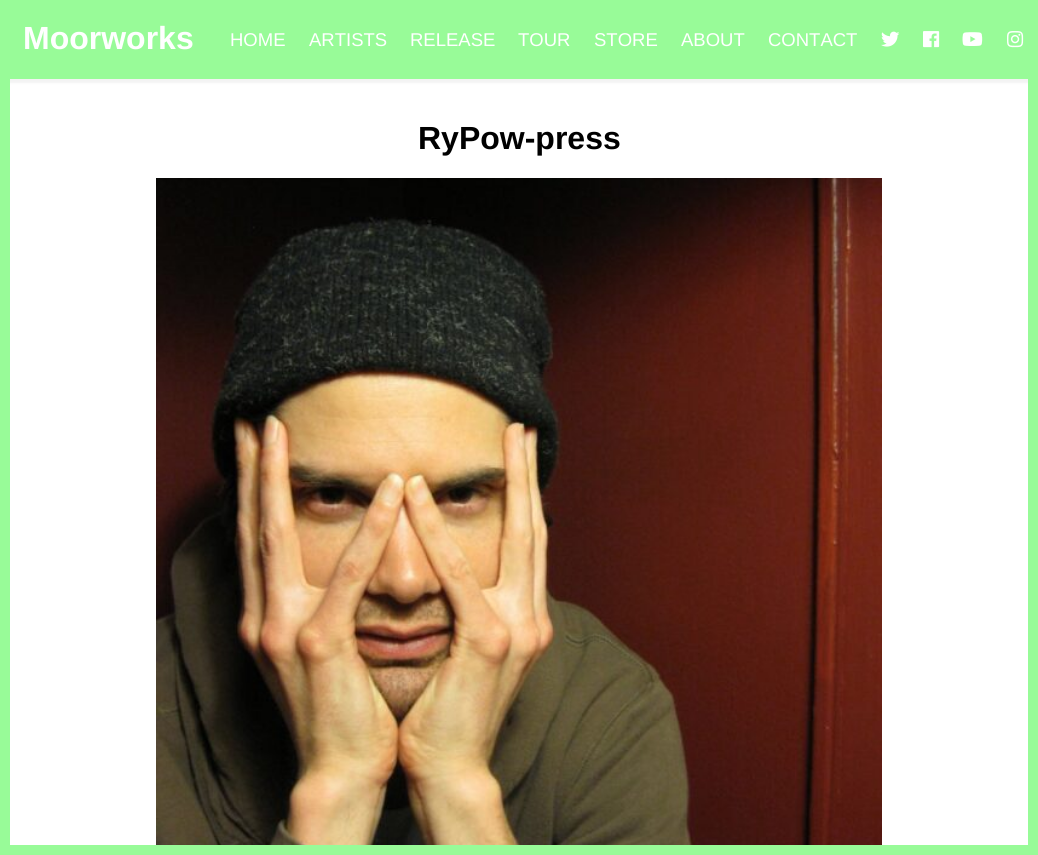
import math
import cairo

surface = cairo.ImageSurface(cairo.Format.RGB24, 1038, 855)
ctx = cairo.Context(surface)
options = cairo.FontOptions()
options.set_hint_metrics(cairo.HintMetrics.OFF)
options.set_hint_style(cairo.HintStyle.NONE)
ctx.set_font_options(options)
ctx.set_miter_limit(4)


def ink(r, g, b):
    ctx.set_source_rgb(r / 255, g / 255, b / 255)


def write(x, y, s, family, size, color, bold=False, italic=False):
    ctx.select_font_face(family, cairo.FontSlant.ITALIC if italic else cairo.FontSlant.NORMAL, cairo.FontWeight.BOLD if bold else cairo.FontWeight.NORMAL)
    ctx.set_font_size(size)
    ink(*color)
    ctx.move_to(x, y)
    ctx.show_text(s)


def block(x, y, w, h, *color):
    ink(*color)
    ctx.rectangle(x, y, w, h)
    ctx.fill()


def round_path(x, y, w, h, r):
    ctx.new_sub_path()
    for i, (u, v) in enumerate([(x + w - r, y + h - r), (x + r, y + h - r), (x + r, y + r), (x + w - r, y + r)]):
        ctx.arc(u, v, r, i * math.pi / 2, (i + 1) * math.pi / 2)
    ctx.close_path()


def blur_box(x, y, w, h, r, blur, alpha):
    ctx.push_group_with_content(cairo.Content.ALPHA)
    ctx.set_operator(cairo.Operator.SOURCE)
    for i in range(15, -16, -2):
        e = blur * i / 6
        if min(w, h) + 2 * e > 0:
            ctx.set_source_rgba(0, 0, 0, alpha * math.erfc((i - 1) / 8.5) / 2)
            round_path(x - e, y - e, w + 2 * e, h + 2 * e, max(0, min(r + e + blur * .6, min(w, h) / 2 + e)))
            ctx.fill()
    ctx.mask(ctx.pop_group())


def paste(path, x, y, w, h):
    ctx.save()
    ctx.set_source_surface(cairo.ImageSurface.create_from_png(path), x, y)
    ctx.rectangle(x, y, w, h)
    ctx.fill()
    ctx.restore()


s1 = dict(family="Liberation Sans", size=32, color=(255, 255, 255), bold=True)
s2 = dict(family="Liberation Sans", size=18.5, color=(255, 255, 255))
s3 = dict(family="Liberation Sans", size=32, color=(0, 0, 0), bold=True)

ink(255, 255, 255)
ctx.paint()
ink(0, 0, 0)
blur_box(0, 4, 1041, 79, 0, 1, 0.05)
block(10, 10, 1018, 69, 152, 251, 152)
paste("pic1.png", 881, 31, 19, 16)
paste("pic2.png", 923, 31, 17, 17)
paste("pic3.png", 962, 32, 21, 14)
paste("pic4.png", 1007, 31, 17, 17)
paste("pic5.png", 156, 178, 726, 667)
ctx.rectangle(5, 5, 1028, 845)
ctx.set_line_width(10)
ctx.stroke()
write(23, 49, "Moorworks", **s1)
write(230, 46, "HOME", **s2)
write(309, 46, "ARTISTS", **s2)
write(410, 46, "RELEASE", **s2)
write(518, 46, "TOUR", **s2)
write(594, 46, "STORE", **s2)
write(681, 46, "ABOUT", **s2)
write(768, 46, "CONTACT", **s2)
write(418, 149, "RyPow-press", **s3)
surface.write_to_png("screenshot.png")
